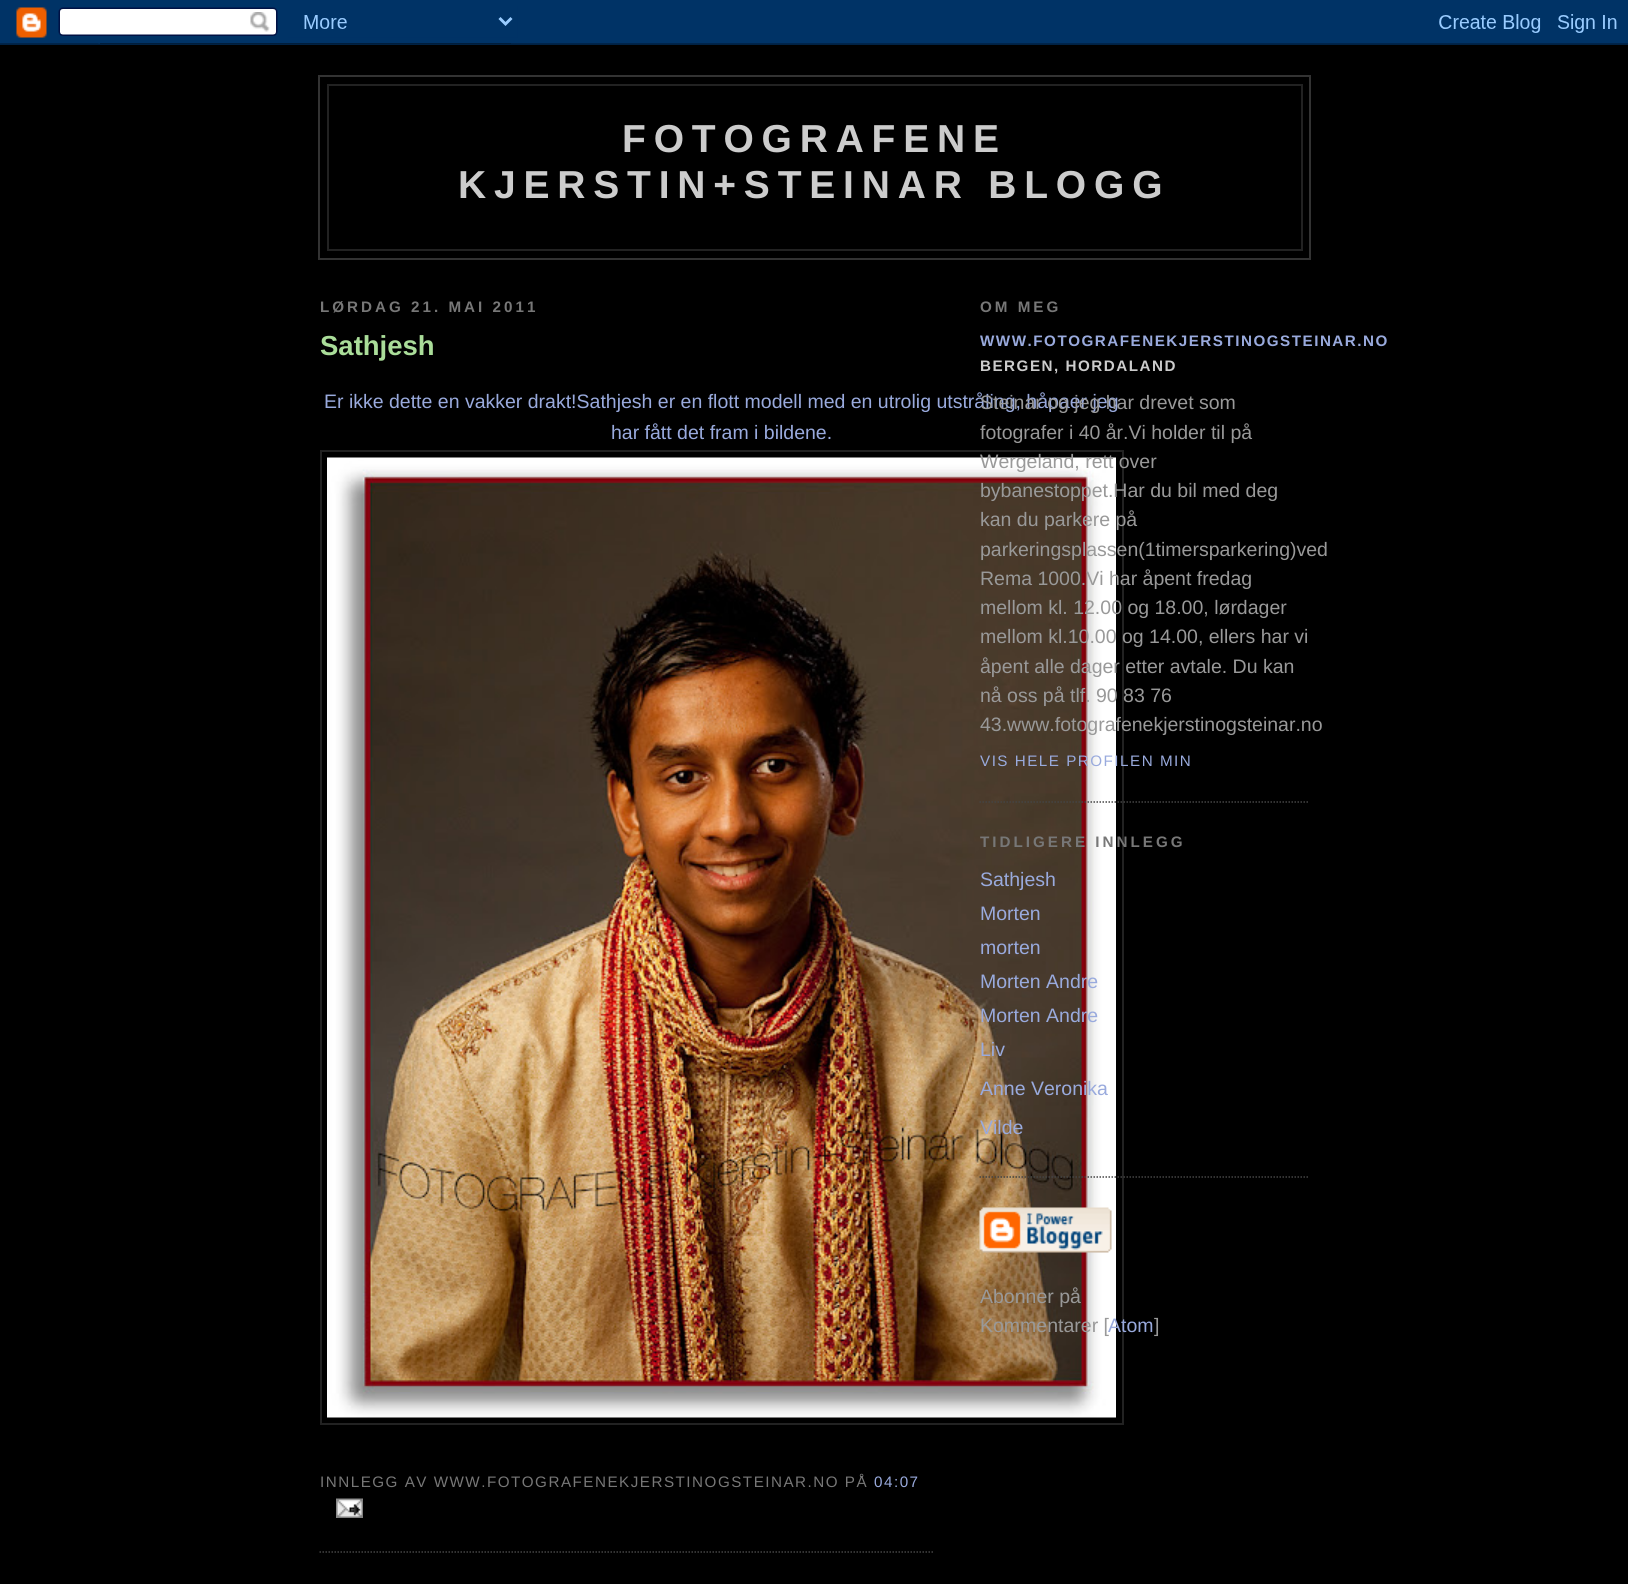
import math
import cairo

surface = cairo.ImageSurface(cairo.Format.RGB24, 1628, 1584)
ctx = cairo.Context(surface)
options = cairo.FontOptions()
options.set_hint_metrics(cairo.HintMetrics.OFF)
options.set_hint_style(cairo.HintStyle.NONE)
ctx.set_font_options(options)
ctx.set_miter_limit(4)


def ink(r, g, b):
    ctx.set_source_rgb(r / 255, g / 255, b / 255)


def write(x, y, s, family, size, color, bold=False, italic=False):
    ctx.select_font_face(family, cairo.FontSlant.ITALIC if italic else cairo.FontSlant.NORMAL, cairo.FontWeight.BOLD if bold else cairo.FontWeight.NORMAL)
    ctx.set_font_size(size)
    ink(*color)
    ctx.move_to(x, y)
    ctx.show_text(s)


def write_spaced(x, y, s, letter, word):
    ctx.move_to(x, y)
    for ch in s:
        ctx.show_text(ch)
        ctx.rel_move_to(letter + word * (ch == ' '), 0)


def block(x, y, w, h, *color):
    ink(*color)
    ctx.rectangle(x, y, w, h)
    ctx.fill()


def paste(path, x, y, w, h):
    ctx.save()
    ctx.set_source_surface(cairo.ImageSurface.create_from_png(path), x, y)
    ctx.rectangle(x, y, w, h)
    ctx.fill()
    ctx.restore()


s1 = dict(family="Liberation Sans", size=27.5, color=(170, 221, 153), bold=True)
s2 = dict(family="Liberation Sans", size=19.5, color=(153, 170, 221))
s3 = dict(family="Liberation Sans", size=19.5, color=(153, 153, 153))

ink(0, 0, 0)
ctx.paint()
paste("pic1.png", 0, 0, 1628, 45)
ctx.rectangle(319, 76, 991, 183)
ink(51, 51, 51)
ctx.stroke()
block(327, 84, 975, 2, 34, 34, 34)
block(1301, 84, 2, 167, 34, 34, 34)
block(327, 84, 2, 135, 34, 34, 34)
ctx.select_font_face("Liberation Sans", cairo.FontSlant.NORMAL, cairo.FontWeight.BOLD)
ctx.set_font_size(39)
ink(204, 204, 204)
write_spaced(622, 152, "FOTOGRAFENE", 7.8, 0)
write_spaced(458, 198, "KJERSTIN+STEINAR BLOGG", 7.8, 0)
block(327, 249, 975, 2, 34, 34, 34)
block(327, 219, 2, 32, 34, 34, 34)
ctx.set_font_size(15.2)
ink(119, 119, 119)
write_spaced(320, 312, "LØRDAG 21. MAI 2011", 3, 0)
ctx.new_path()
ctx.move_to(319.5, 1552)
ctx.line_to(934.5, 1552)
ink(68, 68, 68)
ctx.set_line_width(1.5)
ctx.set_dash([1.5, 1.5])
ctx.stroke()
write(320, 355, "Sathjesh", **s1)
write(324, 408, "Er ikke dette en vakker drakt!Sathjesh er en flott modell med en utrolig utstråling, håpaer jeg", **s2)
write(611, 439, "har fått det fram i bildene.", **s2)
ctx.rectangle(321, 451, 802, 973)
ink(34, 34, 34)
ctx.set_line_width(2)
ctx.set_dash([])
ctx.stroke()
paste("pic2.png", 327, 457, 789, 961)
ctx.set_font_size(15.2)
ink(119, 119, 119)
write_spaced(320, 1487, "INNLEGG AV WWW.FOTOGRAFENEKJERSTINOGSTEINAR.NO PÅ", 1.5, 0)
ink(153, 170, 221)
write_spaced(874, 1487, "04:07", 1.5, 0)
paste("pic3.png", 336, 1498, 27, 20)
ctx.new_path()
ctx.move_to(979.5, 802)
ctx.line_to(1309.5, 802)
ink(68, 68, 68)
ctx.set_line_width(1.5)
ctx.set_dash([1.5, 1.5])
ctx.stroke()
ctx.select_font_face("Liberation Sans", cairo.FontSlant.NORMAL, cairo.FontWeight.BOLD)
ink(119, 119, 119)
write_spaced(980, 312, "OM MEG", 3, 0)
ink(153, 170, 221)
write_spaced(980, 346, "WWW.FOTOGRAFENEKJERSTINOGSTEINAR.NO", 1.5, 0)
ink(204, 204, 204)
write_spaced(980, 371, "BERGEN, HORDALAND", 1.5, 0)
write(980, 409, "Steinar og jeg har drevet som", **s3)
write(980, 439, "fotografer i 40 år.Vi holder til på", **s3)
write(980, 468, "Wergeland, rett over", **s3)
write(980, 497, "bybanestoppet.Har du bil med deg", **s3)
write(980, 526, "kan du parkere på", **s3)
write(980, 556, "parkeringsplassen(1timersparkering)ved", **s3)
write(980, 585, "Rema 1000.Vi har åpent fredag", **s3)
write(980, 614, "mellom kl. 12.00 og 18.00, lørdager", **s3)
write(980, 643, "mellom kl.10.00 og 14.00, ellers har vi", **s3)
write(980, 673, "åpent alle dager etter avtale. Du kan", **s3)
write(980, 702, "nå oss på tlf. 90 83 76", **s3)
write(980, 731, "43.www.fotografenekjerstinogsteinar.no", **s3)
ctx.set_font_size(15.2)
ink(153, 170, 221)
write_spaced(980, 766, "VIS HELE PROFILEN MIN", 1.5, 0)
ctx.select_font_face("Liberation Sans", cairo.FontSlant.NORMAL, cairo.FontWeight.BOLD)
ink(119, 119, 119)
write_spaced(980, 847, "TIDLIGERE INNLEGG", 3, 0)
ctx.new_path()
ctx.move_to(979.5, 1177)
ctx.line_to(1309.5, 1177)
ink(68, 68, 68)
ctx.stroke()
write(980, 886, "Sathjesh", **s2)
write(980, 920, "Morten", **s2)
write(980, 954, "morten", **s2)
write(980, 988, "Morten Andre", **s2)
write(980, 1022, "Morten Andre", **s2)
write(980, 1056, "Liv", **s2)
write(980, 1095, "Anne Veronika", **s2)
write(980, 1134, "Vilde", **s2)
paste("pic4.png", 979, 1207, 133, 46)
write(980, 1303, "Abonner på", **s3)
write(980, 1332, "Kommentarer [", **s3)
write(1108, 1332, "Atom", **s2)
write(1154, 1332, "]", **s3)
surface.write_to_png("screenshot.png")
